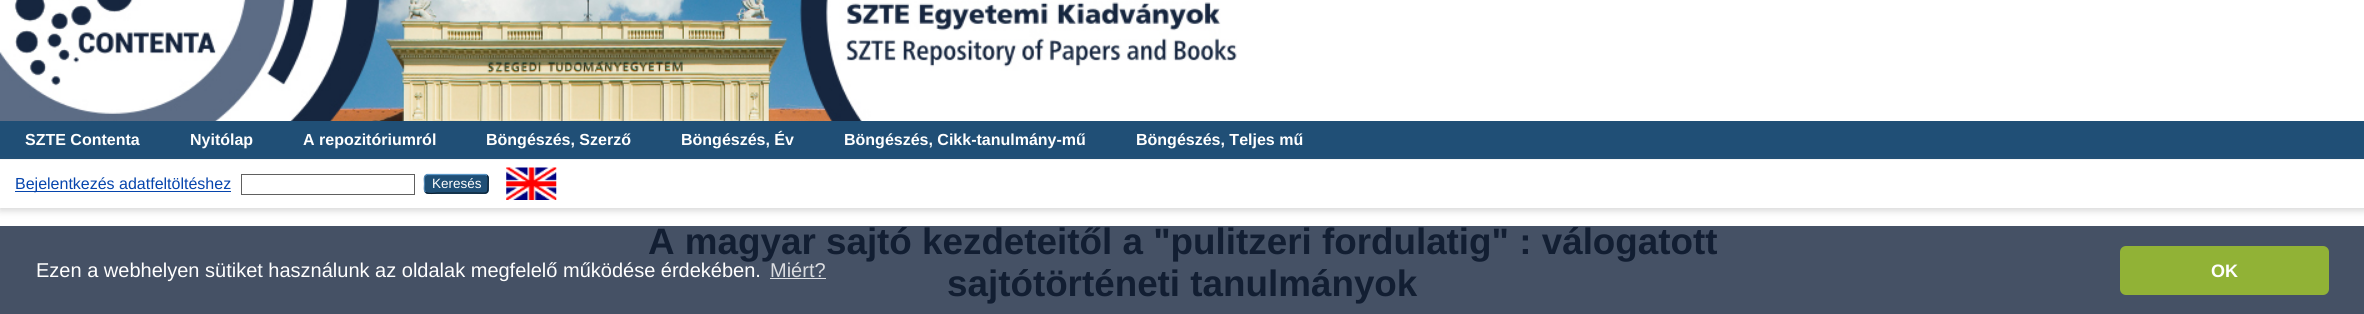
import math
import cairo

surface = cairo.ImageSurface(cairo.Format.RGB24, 2364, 314)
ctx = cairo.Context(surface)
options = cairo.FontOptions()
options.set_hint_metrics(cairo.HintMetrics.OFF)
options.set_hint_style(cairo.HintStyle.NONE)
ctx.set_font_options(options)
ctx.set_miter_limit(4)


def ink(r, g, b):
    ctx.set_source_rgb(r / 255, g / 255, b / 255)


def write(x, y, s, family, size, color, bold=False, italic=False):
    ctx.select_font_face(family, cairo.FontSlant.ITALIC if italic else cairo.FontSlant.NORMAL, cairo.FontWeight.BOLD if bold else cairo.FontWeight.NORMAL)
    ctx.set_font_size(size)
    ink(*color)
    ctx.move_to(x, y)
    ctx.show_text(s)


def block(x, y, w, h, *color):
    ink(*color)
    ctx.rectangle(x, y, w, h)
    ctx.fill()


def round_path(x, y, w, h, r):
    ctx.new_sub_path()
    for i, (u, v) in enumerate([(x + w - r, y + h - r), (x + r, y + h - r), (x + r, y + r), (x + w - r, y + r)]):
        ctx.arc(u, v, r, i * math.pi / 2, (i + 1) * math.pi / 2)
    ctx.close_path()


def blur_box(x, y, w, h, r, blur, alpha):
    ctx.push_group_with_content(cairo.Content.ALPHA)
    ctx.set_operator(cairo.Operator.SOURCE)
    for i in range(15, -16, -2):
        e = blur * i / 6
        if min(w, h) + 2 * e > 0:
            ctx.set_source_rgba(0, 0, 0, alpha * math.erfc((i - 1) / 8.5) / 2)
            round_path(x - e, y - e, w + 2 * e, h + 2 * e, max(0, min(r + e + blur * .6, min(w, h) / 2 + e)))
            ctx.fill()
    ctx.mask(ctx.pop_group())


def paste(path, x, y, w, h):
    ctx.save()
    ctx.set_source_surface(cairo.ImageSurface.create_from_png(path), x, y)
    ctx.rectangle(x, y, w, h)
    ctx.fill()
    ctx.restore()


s1 = dict(family="Liberation Sans", size=16, color=(255, 255, 255), bold=True)
s2 = dict(family="Liberation Sans", size=16, color=(6, 69, 173))
s3 = dict(family="Liberation Sans", size=13.5, color=(255, 255, 255))
s4 = dict(family="Liberation Sans", size=36.8, color=(18, 30, 50), bold=True)
s5 = dict(family="Liberation Sans", size=20, color=(255, 255, 255))
s6 = dict(family="Liberation Sans", size=20, color=(218, 220, 224))
s7 = dict(family="Liberation Sans", size=18, color=(255, 255, 255), bold=True)

ink(255, 255, 255)
ctx.paint()
block(0, 226, 2364, 88, 69, 81, 101)
paste("pic1.png", 0, 0, 1237, 121)
block(0, 121, 2364, 38, 32, 79, 118)
write(25, 145, "SZTE Contenta", **s1)
write(190, 145, "Nyitólap", **s1)
write(303, 145, "A repozitóriumról", **s1)
write(486, 145, "Böngészés, Szerző", **s1)
write(681, 145, "Böngészés, Év", **s1)
write(844, 145, "Böngészés, Cikk-tanulmány-mű", **s1)
write(1136, 145, "Böngészés, Teljes mű", **s1)
ink(100, 100, 100)
blur_box(0, 163, 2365, 47, 0, 4, 0.3)
block(0, 160, 2364, 48, 255, 255, 255)
block(15, 191, 216, 1, 6, 69, 173)
write(15, 189, "Bejelentkezés adatfeltöltéshez", **s2)
ctx.rectangle(241.5, 174.5, 173, 20)
ink(96, 96, 96)
ctx.set_line_width(1)
ctx.stroke()
ink(31, 79, 118)
round_path(424, 174, 65, 20, 4)
ctx.fill()
ctx.new_path()
ctx.move_to(425.5, 175.5)
ctx.line_to(427, 174.5)
ctx.line_to(485.5, 174.5)
ctx.line_to(487, 175.5)
ink(91, 151, 199)
ctx.set_line_width(1.2)
ctx.stroke()
ctx.new_path()
ctx.move_to(487, 175.5)
ctx.curve_to(489, 177.5, 488, 181.5, 488, 184)
ctx.curve_to(488, 195, 488, 193, 475.5, 193)
ctx.line_to(437, 193)
ctx.curve_to(436.5, 193, 427.5, 194.5, 425.5, 192)
ink(13, 33, 49)
ctx.stroke()
ctx.new_path()
ctx.move_to(425.5, 192)
ctx.curve_to(423.5, 190.5, 424.5, 186, 424.5, 184)
ctx.curve_to(424.5, 181.5, 423.5, 177, 425.5, 175.5)
ink(82, 135, 179)
ctx.stroke()
write(432, 188, "Keresés", **s3)
paste("pic2.png", 506, 167, 51, 33)
write(648, 254, "A magyar sajtó kezdeteitől a \"pulitzeri fordulatig\" : válogatott", **s4)
write(947, 296, "sajtótörténeti tanulmányok", **s4)
write(36, 277, "Ezen a webhelyen sütiket használunk az oldalak megfelelő működése érdekében.", **s5)
write(770, 277, "Miért?", **s6)
block(770, 278, 56, 1, 218, 220, 224)
ink(145, 178, 54)
round_path(2120, 246, 209, 49, 6)
ctx.fill()
write(2211, 277, "OK", **s7)
surface.write_to_png("screenshot.png")
